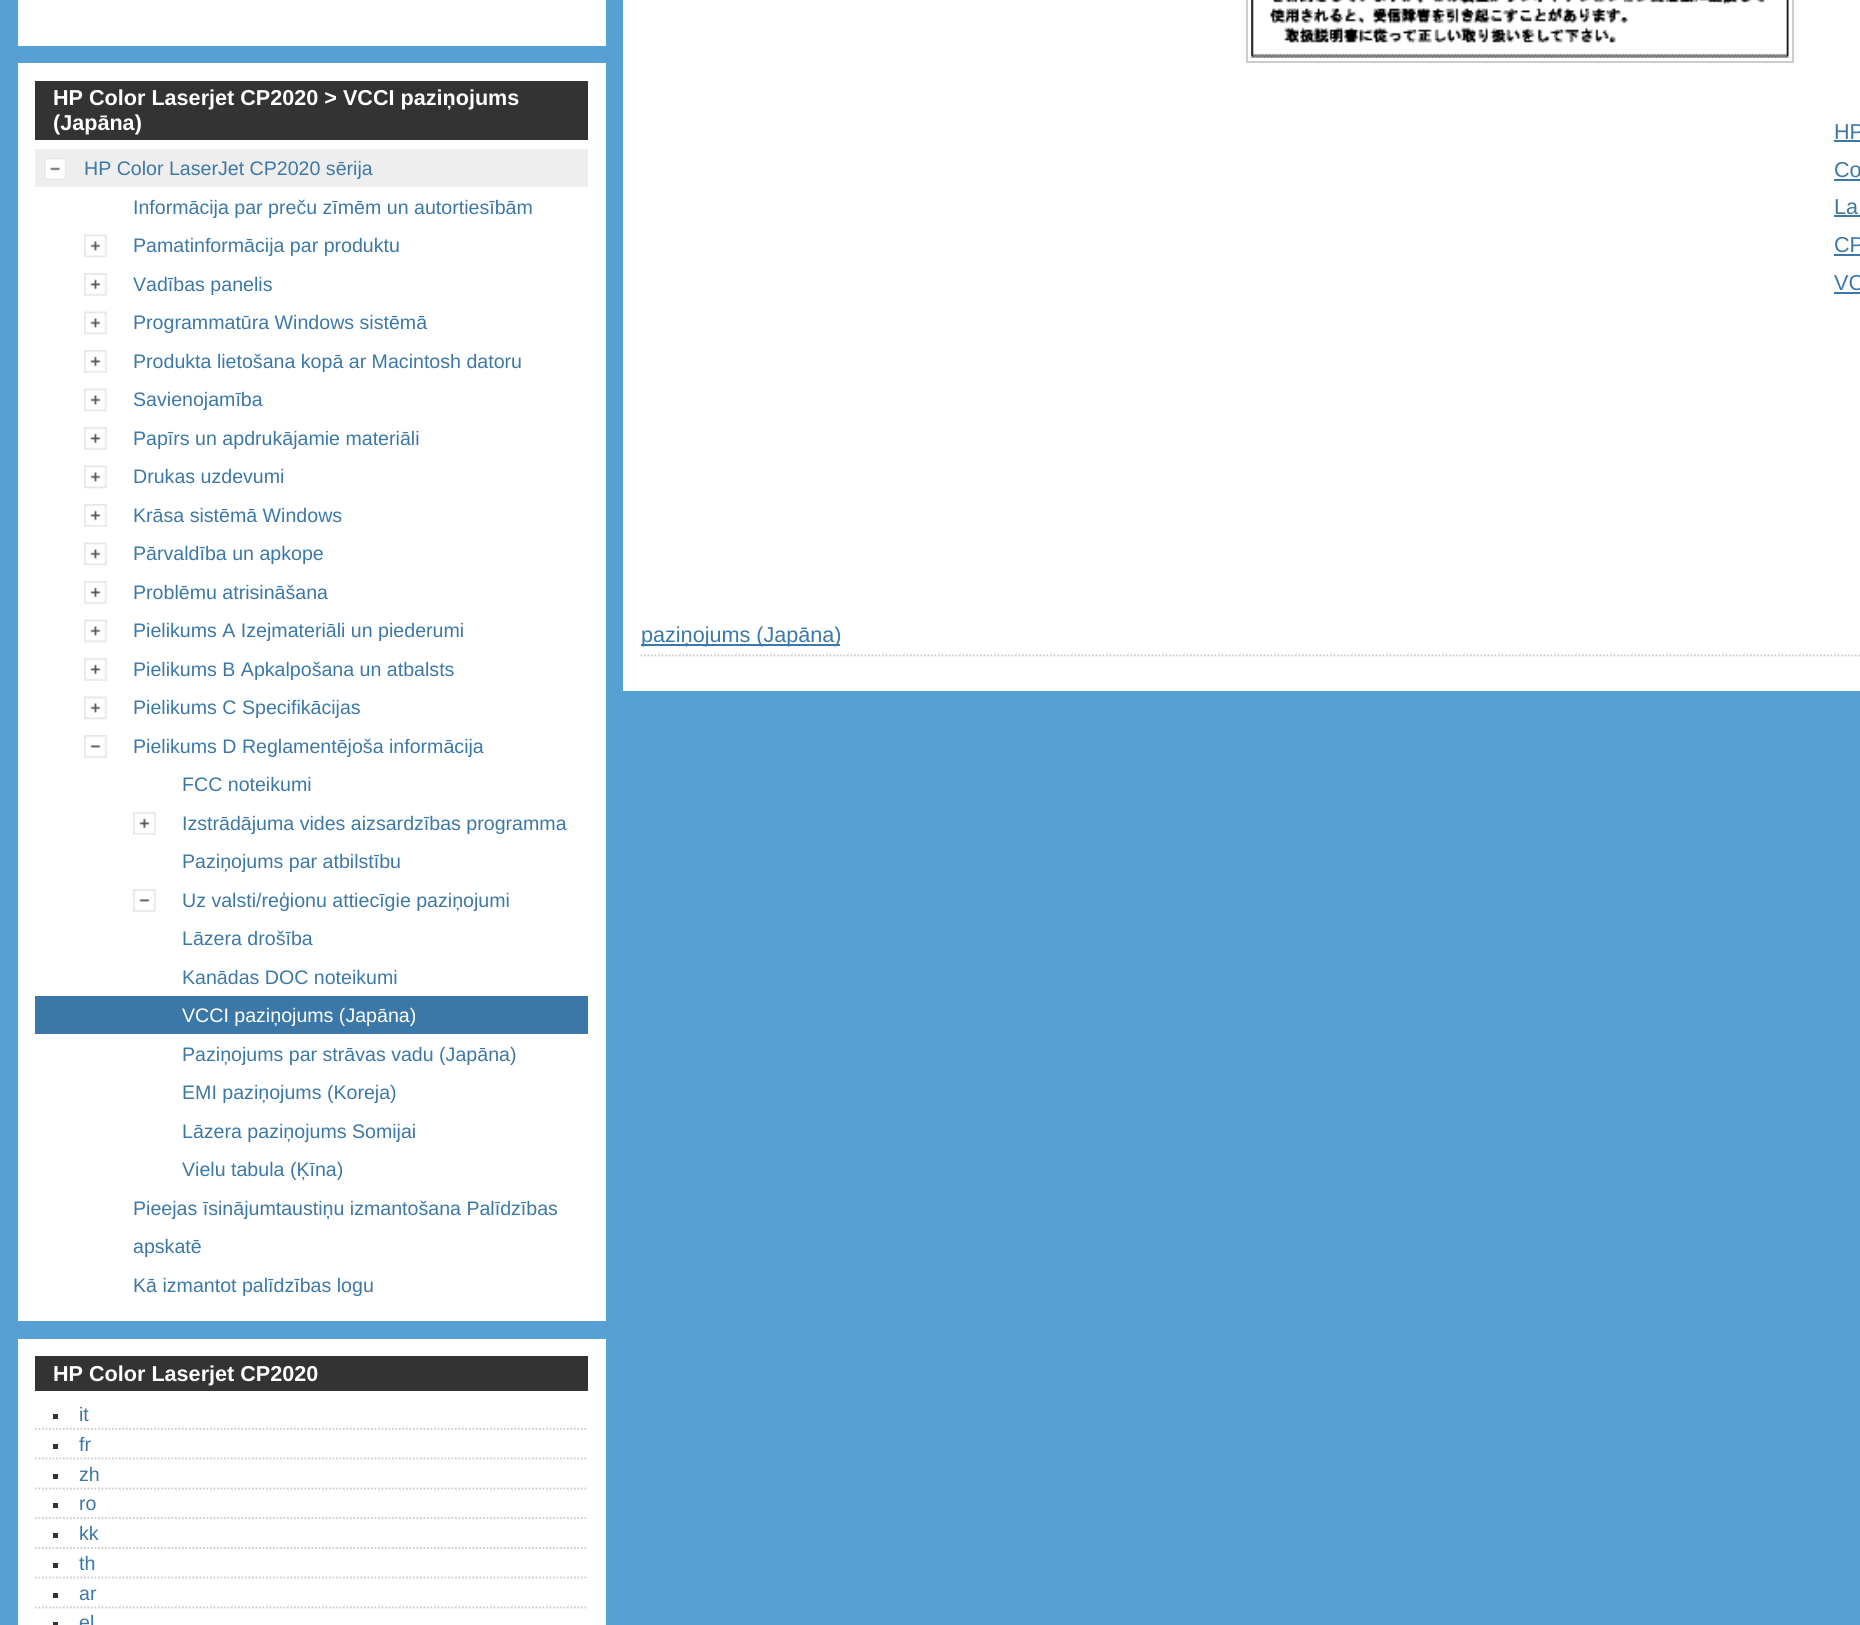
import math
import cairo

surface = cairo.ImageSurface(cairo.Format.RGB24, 1860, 1625)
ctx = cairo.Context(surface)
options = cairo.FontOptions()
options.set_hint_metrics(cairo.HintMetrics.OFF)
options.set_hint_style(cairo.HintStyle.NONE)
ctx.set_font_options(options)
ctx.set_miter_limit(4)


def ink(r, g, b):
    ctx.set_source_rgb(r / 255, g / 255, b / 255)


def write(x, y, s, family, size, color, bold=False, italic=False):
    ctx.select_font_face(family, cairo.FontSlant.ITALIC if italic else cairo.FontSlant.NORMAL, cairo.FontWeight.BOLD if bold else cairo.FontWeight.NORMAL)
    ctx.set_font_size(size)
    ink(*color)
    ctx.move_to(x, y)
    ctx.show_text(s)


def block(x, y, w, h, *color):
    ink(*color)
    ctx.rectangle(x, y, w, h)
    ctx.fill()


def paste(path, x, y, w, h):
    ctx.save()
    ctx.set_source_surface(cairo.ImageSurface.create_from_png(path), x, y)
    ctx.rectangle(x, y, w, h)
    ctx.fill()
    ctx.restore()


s1 = dict(family="Liberation Sans", size=21.6, color=(255, 255, 255), bold=True)
s2 = dict(family="Liberation Sans", size=19.6, color=(60, 120, 167))
s3 = dict(family="Liberation Sans", size=19.6, color=(255, 255, 255))
s4 = dict(family="Liberation Sans", size=21.6, color=(60, 120, 167))

ink(86, 160, 211)
ctx.paint()
block(18, 0, 588, 46, 255, 255, 255)
block(18, 63, 588, 1258, 255, 255, 255)
block(35, 81, 553, 59, 51, 51, 51)
write(53, 105, "HP Color Laserjet CP2020 > VCCI paziņojums", **s1)
write(53, 130, "(Japāna)", **s1)
block(35, 149, 553, 38, 238, 238, 238)
paste("pic1.png", 44, 158, 22, 22)
write(84, 175, "HP Color LaserJet CP2020 sērija", **s2)
write(133, 214, "Informācija par preču zīmēm un autortiesībām", **s2)
paste("pic2.png", 84, 234, 23, 24)
write(133, 252, "Pamatinformācija par produktu", **s2)
paste("pic3.png", 84, 273, 23, 23)
write(133, 291, "Vadības panelis", **s2)
paste("pic2.png", 84, 311, 23, 24)
write(133, 329, "Programmatūra Windows sistēmā", **s2)
paste("pic3.png", 84, 350, 23, 23)
write(133, 368, "Produkta lietošana kopā ar Macintosh datoru", **s2)
paste("pic2.png", 84, 388, 23, 24)
write(133, 406, "Savienojamība", **s2)
paste("pic3.png", 84, 427, 23, 23)
write(133, 445, "Papīrs un apdrukājamie materiāli", **s2)
paste("pic2.png", 84, 465, 23, 24)
write(133, 483, "Drukas uzdevumi", **s2)
paste("pic3.png", 84, 504, 23, 23)
write(133, 522, "Krāsa sistēmā Windows", **s2)
paste("pic2.png", 84, 542, 23, 24)
write(133, 560, "Pārvaldība un apkope", **s2)
paste("pic3.png", 84, 581, 23, 23)
write(133, 599, "Problēmu atrisināšana", **s2)
paste("pic2.png", 84, 619, 23, 24)
write(133, 637, "Pielikums A Izejmateriāli un piederumi", **s2)
paste("pic3.png", 84, 658, 23, 23)
write(133, 676, "Pielikums B Apkalpošana un atbalsts", **s2)
paste("pic2.png", 84, 696, 23, 24)
write(133, 714, "Pielikums C Specifikācijas", **s2)
paste("pic4.png", 84, 735, 23, 23)
write(133, 753, "Pielikums D Reglamentējoša informācija", **s2)
write(182, 791, "FCC noteikumi", **s2)
paste("pic5.png", 133, 812, 23, 23)
write(182, 830, "Izstrādājuma vides aizsardzības programma", **s2)
write(182, 868, "Paziņojums par atbilstību", **s2)
paste("pic4.png", 133, 889, 23, 23)
write(182, 907, "Uz valsti/reģionu attiecīgie paziņojumi", **s2)
write(182, 945, "Lāzera drošība", **s2)
write(182, 984, "Kanādas DOC noteikumi", **s2)
block(35, 996, 553, 38, 60, 120, 167)
write(182, 1022, "VCCI paziņojums (Japāna)", **s3)
write(182, 1061, "Paziņojums par strāvas vadu (Japāna)", **s2)
write(182, 1099, "EMI paziņojums (Koreja)", **s2)
write(182, 1138, "Lāzera paziņojums Somijai", **s2)
write(182, 1176, "Vielu tabula (Ķīna)", **s2)
write(133, 1215, "Pieejas īsinājumtaustiņu izmantošana Palīdzības", **s2)
write(133, 1253, "apskatē", **s2)
write(133, 1292, "Kā izmantot palīdzības logu", **s2)
block(18, 1339, 588, 286, 255, 255, 255)
block(35, 1356, 553, 35, 51, 51, 51)
write(53, 1381, "HP Color Laserjet CP2020", **s1)
ctx.new_path()
ctx.move_to(35, 1429)
ctx.line_to(588, 1429)
ink(204, 204, 204)
ctx.set_line_width(1.8)
ctx.set_dash([1.75, 1.75])
ctx.stroke()
block(53, 1414, 5, 5, 51, 51, 51)
write(79, 1421, "it", **s2)
ctx.new_path()
ctx.move_to(35, 1458.5)
ctx.line_to(588, 1458.5)
ink(204, 204, 204)
ctx.stroke()
block(53, 1444, 5, 5, 51, 51, 51)
write(79, 1451, "fr", **s2)
ctx.new_path()
ctx.move_to(35, 1488.5)
ctx.line_to(588, 1488.5)
ink(204, 204, 204)
ctx.stroke()
block(53, 1474, 5, 5, 51, 51, 51)
write(79, 1481, "zh", **s2)
ctx.new_path()
ctx.move_to(35, 1518)
ctx.line_to(588, 1518)
ink(204, 204, 204)
ctx.stroke()
block(53, 1503, 5, 5, 51, 51, 51)
write(79, 1510, "ro", **s2)
ctx.new_path()
ctx.move_to(35, 1548)
ctx.line_to(588, 1548)
ink(204, 204, 204)
ctx.stroke()
block(53, 1533, 5, 5, 51, 51, 51)
write(79, 1540, "kk", **s2)
ctx.new_path()
ctx.move_to(35, 1577.5)
ctx.line_to(588, 1577.5)
ink(204, 204, 204)
ctx.stroke()
block(53, 1563, 5, 5, 51, 51, 51)
write(79, 1570, "th", **s2)
ctx.new_path()
ctx.move_to(35, 1607.5)
ctx.line_to(588, 1607.5)
ink(204, 204, 204)
ctx.stroke()
block(53, 1593, 5, 5, 51, 51, 51)
write(79, 1600, "ar", **s2)
block(53, 1622, 5, 3, 51, 51, 51)
write(79, 1629, "el", **s2)
block(623, 0, 1237, 691, 255, 255, 255)
ctx.new_path()
ctx.move_to(640.5, 655.5)
ctx.line_to(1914.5, 655.5)
ink(204, 204, 204)
ctx.stroke()
ctx.rectangle(1247, -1, 546, 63)
ctx.set_line_width(2)
ctx.set_dash([])
ctx.stroke()
paste("pic6.png", 1251, 0, 538, 58)
write(1834, 139, "HP", **s4)
block(1834, 140, 26, 2, 60, 120, 167)
write(1834, 177, "Co", **s4)
block(1834, 179, 26, 2, 60, 120, 167)
write(1834, 214, "La", **s4)
block(1834, 215, 26, 2, 60, 120, 167)
write(1834, 252, "CP", **s4)
block(1834, 254, 26, 2, 60, 120, 167)
write(1834, 290, "VC", **s4)
block(1834, 292, 26, 2, 60, 120, 167)
block(641, 644, 199, 2, 60, 120, 167)
write(641, 642, "paziņojums (Japāna)", **s4)
surface.write_to_png("screenshot.png")
